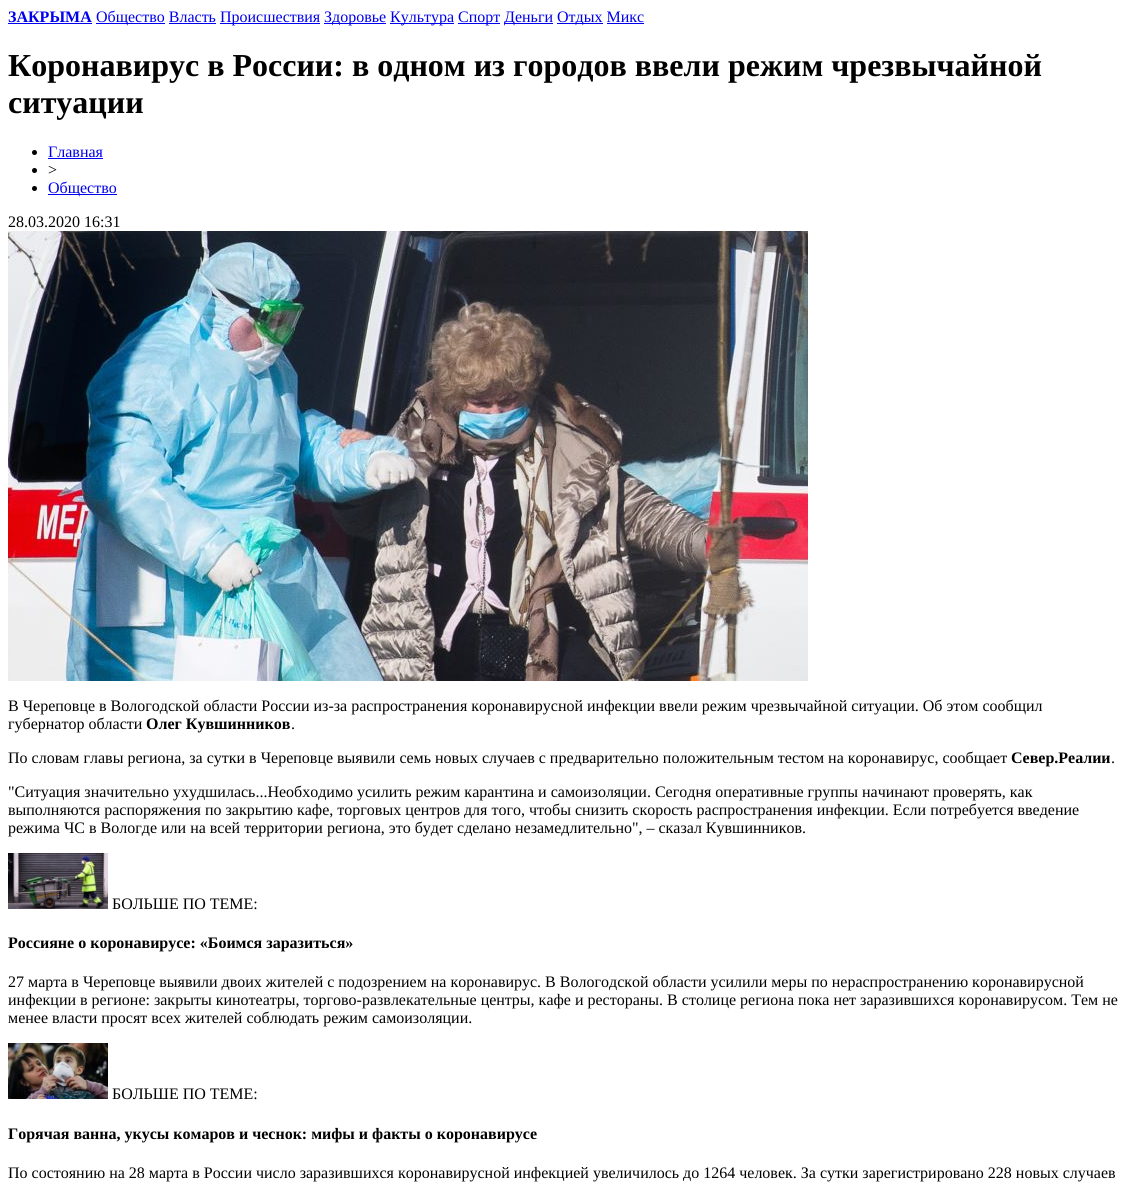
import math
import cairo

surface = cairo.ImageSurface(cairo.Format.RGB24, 1127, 1188)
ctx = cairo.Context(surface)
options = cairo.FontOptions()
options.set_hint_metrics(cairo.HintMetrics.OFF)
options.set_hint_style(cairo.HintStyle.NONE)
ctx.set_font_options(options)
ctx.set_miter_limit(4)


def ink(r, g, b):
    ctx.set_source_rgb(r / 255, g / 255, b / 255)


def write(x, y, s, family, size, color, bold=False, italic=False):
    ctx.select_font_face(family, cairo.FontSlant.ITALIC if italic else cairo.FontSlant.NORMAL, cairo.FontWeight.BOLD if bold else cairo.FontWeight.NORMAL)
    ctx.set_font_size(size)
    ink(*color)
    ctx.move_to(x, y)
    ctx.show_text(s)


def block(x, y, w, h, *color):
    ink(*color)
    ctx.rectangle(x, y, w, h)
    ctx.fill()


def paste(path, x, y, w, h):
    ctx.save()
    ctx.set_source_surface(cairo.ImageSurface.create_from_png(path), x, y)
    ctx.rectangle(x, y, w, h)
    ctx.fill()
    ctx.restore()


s1 = dict(family="Liberation Serif", size=16, color=(0, 0, 238), bold=True)
s2 = dict(family="Liberation Serif", size=16, color=(0, 0, 238))
s3 = dict(family="Liberation Serif", size=32, color=(0, 0, 0), bold=True)
s4 = dict(family="Liberation Serif", size=16, color=(0, 0, 0))
s5 = dict(family="Liberation Serif", size=16, color=(0, 0, 0), bold=True)

ink(255, 255, 255)
ctx.paint()
write(8, 22, "ЗАКРЫМА", **s1)
block(8, 23, 84, 1, 0, 0, 238)
block(96, 23, 69, 1, 0, 0, 238)
write(96, 22, "Общество Власть", **s2)
block(220, 23, 100, 1, 0, 0, 238)
write(220, 22, "Происшествия", **s2)
block(324, 23, 62, 1, 0, 0, 238)
write(324, 22, "Здоровье", **s2)
block(390, 23, 64, 1, 0, 0, 238)
write(390, 22, "Культура", **s2)
block(458, 23, 42, 1, 0, 0, 238)
write(458, 22, "Спорт", **s2)
block(504, 23, 49, 1, 0, 0, 238)
write(504, 22, "Деньги", **s2)
block(557, 23, 46, 1, 0, 0, 238)
write(557, 22, "Отдых Микс", **s2)
block(169, 23, 47, 1, 0, 0, 238)
block(607, 23, 37, 1, 0, 0, 238)
write(8, 76, "Коронавирус в России: в одном из городов ввели режим чрезвычайной", **s3)
write(8, 113, "ситуации", **s3)
ctx.new_path()
ctx.arc(34.5, 152.5, 2.5, 0, 2 * math.pi)
ctx.fill()
write(48, 157, "Главная", **s2)
block(48, 158, 55, 1, 0, 0, 238)
ink(0, 0, 0)
ctx.new_path()
ctx.arc(34.5, 170.5, 2.5, 0, 2 * math.pi)
ctx.fill()
write(48, 175, ">", **s4)
ctx.new_path()
ctx.arc(34.5, 188.5, 2.5, 0, 2 * math.pi)
ctx.fill()
block(48, 194, 69, 1, 0, 0, 238)
write(48, 193, "Общество", **s2)
write(8, 227, "28.03.2020 16:31", **s4)
paste("pic1.png", 8, 231, 800, 450)
write(8, 711, "В Череповце в Вологодской области России из-за распространения коронавирусной инфекции ввели режим чрезвычайной ситуации. Об этом сообщил", **s4)
write(8, 729, "губернатор области", **s4)
write(146, 729, "Олег Кувшинников", **s5)
write(291, 729, ".", **s4)
write(8, 763, "По словам главы региона, за сутки в Череповце выявили семь новых случаев с предварительно положительным тестом на коронавирус, сообщает", **s4)
write(1011, 763, "Север.Реалии", **s5)
write(1111, 763, ".", **s4)
write(8, 797, "\"Ситуация значительно ухудшилась...Необходимо усилить режим карантина и самоизоляции. Сегодня оперативные группы начинают проверять, как", **s4)
write(8, 815, "выполняются распоряжения по закрытию кафе, торговых центров для того, чтобы снизить скорость распространения инфекции. Если потребуется введение", **s4)
write(8, 833, "режима ЧС в Вологде или на всей территории региона, это будет сделано незамедлительно\", – сказал Кувшинников.", **s4)
paste("pic2.png", 8, 853, 100, 56)
write(112, 909, "БОЛЬШЕ ПО ТЕМЕ:", **s4)
write(8, 948, "Россияне о коронавирусе: «Боимся заразиться»", **s5)
write(8, 987, "27 марта в Череповце выявили двоих жителей с подозрением на коронавирус. В Вологодской области усилили меры по нераспространению коронавирусной", **s4)
write(8, 1005, "инфекции в регионе: закрыты кинотеатры, торгово-развлекательные центры, кафе и рестораны. В столице региона пока нет заразившихся коронавирусом. Тем не", **s4)
write(8, 1023, "менее власти просят всех жителей соблюдать режим самоизоляции.", **s4)
paste("pic3.png", 8, 1043, 100, 56)
write(112, 1099, "БОЛЬШЕ ПО ТЕМЕ:", **s4)
write(8, 1139, "Горячая ванна, укусы комаров и чеснок: мифы и факты о коронавирусе", **s5)
write(8, 1178, "По состоянию на 28 марта в России число заразившихся коронавирусной инфекцией увеличилось до 1264 человек. За сутки зарегистрировано 228 новых случаев", **s4)
surface.write_to_png("screenshot.png")
